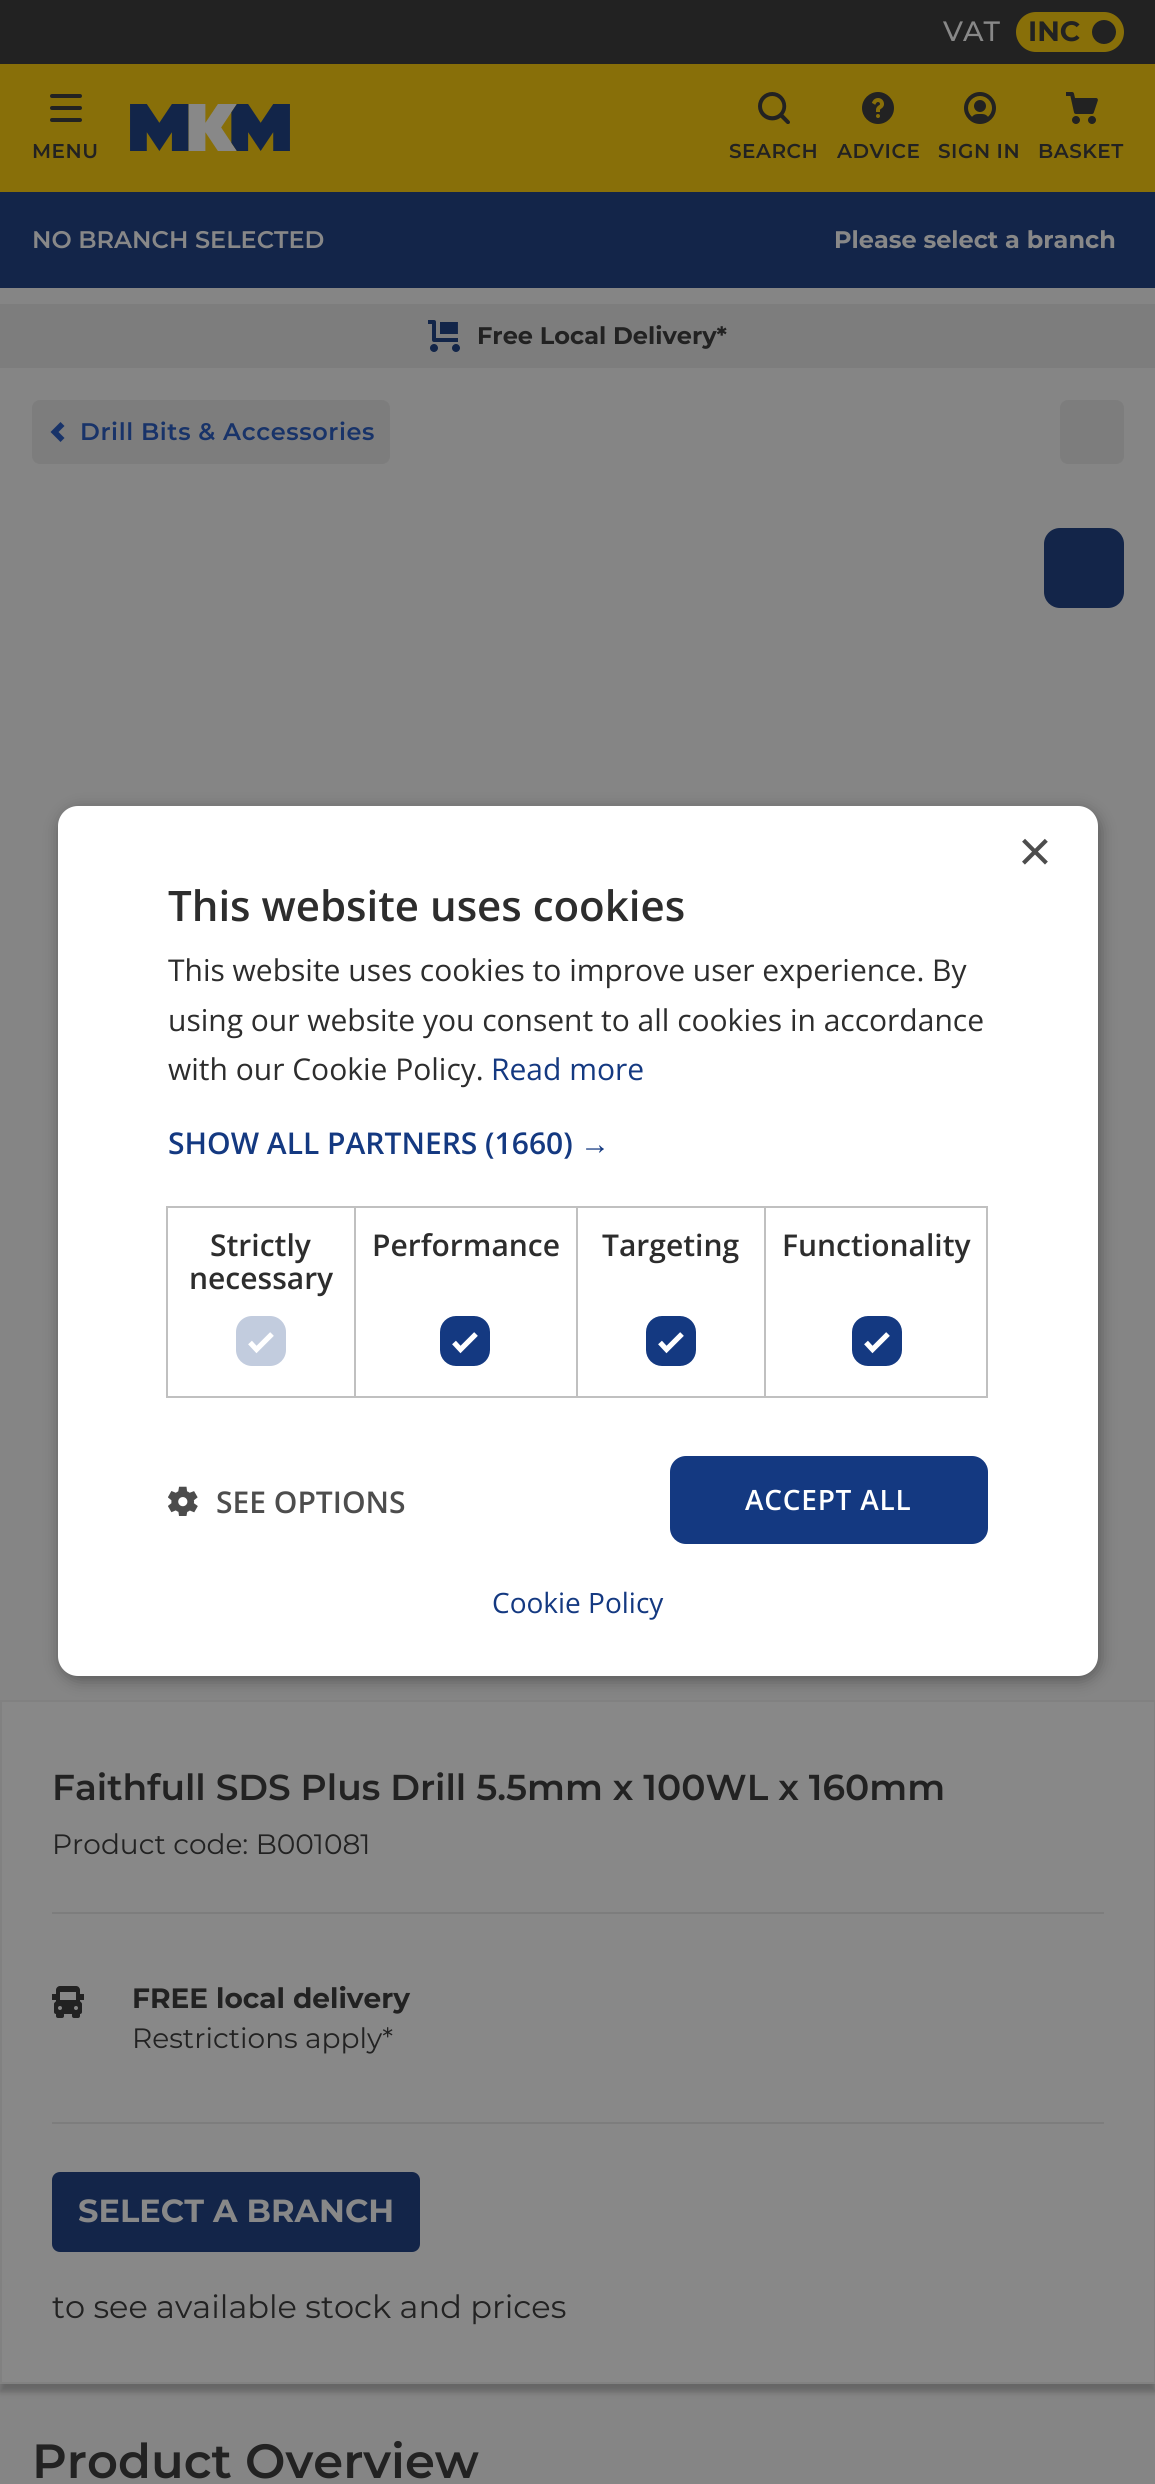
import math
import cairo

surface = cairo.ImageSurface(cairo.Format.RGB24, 1155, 2484)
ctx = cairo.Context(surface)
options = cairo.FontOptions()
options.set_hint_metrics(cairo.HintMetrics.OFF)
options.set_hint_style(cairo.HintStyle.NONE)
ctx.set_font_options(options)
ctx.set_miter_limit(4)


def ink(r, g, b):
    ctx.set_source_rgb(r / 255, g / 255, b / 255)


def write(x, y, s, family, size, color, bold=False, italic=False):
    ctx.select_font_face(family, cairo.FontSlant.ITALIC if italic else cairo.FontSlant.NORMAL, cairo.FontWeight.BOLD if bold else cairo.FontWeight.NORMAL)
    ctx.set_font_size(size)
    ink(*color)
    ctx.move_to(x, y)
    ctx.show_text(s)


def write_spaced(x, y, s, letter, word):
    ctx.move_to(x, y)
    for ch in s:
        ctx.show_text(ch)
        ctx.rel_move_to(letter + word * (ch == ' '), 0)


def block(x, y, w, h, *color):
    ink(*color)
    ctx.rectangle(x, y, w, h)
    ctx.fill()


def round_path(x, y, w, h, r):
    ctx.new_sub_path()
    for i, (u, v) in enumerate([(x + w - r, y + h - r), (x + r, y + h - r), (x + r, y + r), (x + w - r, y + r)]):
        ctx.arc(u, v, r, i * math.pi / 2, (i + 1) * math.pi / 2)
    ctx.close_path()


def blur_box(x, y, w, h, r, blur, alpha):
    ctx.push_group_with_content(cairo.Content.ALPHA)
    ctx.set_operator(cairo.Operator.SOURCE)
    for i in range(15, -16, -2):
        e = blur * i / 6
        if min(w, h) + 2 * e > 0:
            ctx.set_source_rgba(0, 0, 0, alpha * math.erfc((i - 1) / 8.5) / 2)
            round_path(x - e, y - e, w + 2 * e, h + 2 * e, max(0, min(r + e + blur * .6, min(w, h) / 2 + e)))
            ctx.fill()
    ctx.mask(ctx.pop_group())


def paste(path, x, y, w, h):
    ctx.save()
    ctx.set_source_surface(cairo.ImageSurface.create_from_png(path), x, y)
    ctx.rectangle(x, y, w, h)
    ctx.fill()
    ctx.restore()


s1 = dict(family="Montserrat Medium", size=28, color=(136, 136, 136))
s2 = dict(family="Montserrat", size=28, color=(34, 34, 34), bold=True)
s3 = dict(family="Montserrat SemiBold", size=24, color=(136, 136, 136))
s4 = dict(family="Montserrat", size=24, color=(136, 136, 136), bold=True)
s5 = dict(family="Montserrat", size=24, color=(34, 34, 34), bold=True)
s6 = dict(family="Montserrat SemiBold", size=36, color=(34, 34, 34))
s7 = dict(family="Montserrat", size=28, color=(34, 34, 34))
s8 = dict(family="Montserrat", size=32, color=(136, 136, 136), bold=True)
s9 = dict(family="Montserrat", size=32, color=(34, 34, 34))
s10 = dict(family="Montserrat SemiBold", size=48, color=(34, 34, 34))
s11 = dict(family="Liberation Sans", size=58, color=(77, 77, 77))
s12 = dict(family="Open Sans SemiBold", size=42, color=(45, 45, 45))
s13 = dict(family="Open Sans", size=30, color=(45, 45, 45))
s14 = dict(family="Open Sans", size=30, color=(20, 57, 129))
s15 = dict(family="Open Sans SemiBold", size=30, color=(20, 57, 129))
s16 = dict(family="Liberation Sans", size=30, color=(20, 57, 129), bold=True)
s17 = dict(family="Open Sans SemiBold", size=30, color=(45, 45, 45))
s18 = dict(family="Open Sans SemiBold", size=30, color=(77, 77, 77))
s19 = dict(family="Open Sans", size=28, color=(20, 57, 129))

ink(133, 133, 133)
ctx.paint()
block(0, 0, 1155, 64, 34, 34, 34)
write(943, 41, "VAT", **s1)
ink(136, 111, 9)
round_path(1018, 14, 104, 36, 18)
ctx.fill_preserve()
ctx.set_line_width(4)
ctx.stroke()
write(1028, 41, "INC", **s2)
ctx.new_path()
ctx.arc(1104, 32, 12, 0, 2 * math.pi)
ctx.fill()
block(0, 64, 1155, 128, 136, 111, 9)
paste("pic1.png", 50, 94, 32, 28)
ctx.select_font_face("Montserrat SemiBold")
ctx.set_font_size(20)
ink(34, 34, 34)
write_spaced(32, 158, "MENU", 0.5, 0)
paste("pic2.png", 130, 104, 160, 47)
paste("pic3.png", 758, 92, 32, 32)
write_spaced(729, 158, "SEARCH", 0.5, 0)
paste("pic4.png", 862, 92, 32, 32)
write_spaced(837, 158, "ADVICE", 0.5, 0)
paste("pic5.png", 964, 92, 32, 32)
write_spaced(938, 158, "SIGN IN", 0.5, 0)
paste("pic6.png", 1066, 92, 32, 32)
write_spaced(1038, 158, "BASKET", 0.5, 0)
block(0, 192, 1155, 96, 19, 37, 73)
write(32, 248, "NO BRANCH SELECTED", **s3)
write(834, 248, "Please select a branch", **s4)
block(0, 304, 1155, 64, 125, 125, 125)
paste("pic7.png", 428, 320, 32, 32)
write(477, 344, "Free Local Delivery*", **s5)
ink(125, 125, 125)
round_path(32, 400, 358, 64, 8)
ctx.fill()
ink(24, 51, 105)
ctx.new_path()
ctx.move_to(60.5, 442)
ctx.line_to(64.5, 438)
ctx.line_to(58.5, 432)
ctx.line_to(64.5, 426)
ctx.line_to(60.5, 422)
ctx.line_to(50.5, 432)
ctx.close_path()
ctx.fill()
ctx.select_font_face("Montserrat SemiBold")
write_spaced(80, 440, "Drill Bits & Accessories", 0.6, 0)
ink(125, 125, 125)
round_path(1060, 400, 64, 64, 8)
ctx.fill()
ink(19, 37, 73)
round_path(1044, 528, 80, 80, 16)
ctx.fill()
ink(9, 9, 9)
blur_box(0, 1708, 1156, 684, 0, 3, 0.25)
ink(136, 136, 136)
ctx.rectangle(1, 1701, 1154, 682)
ctx.fill_preserve()
ink(129, 129, 129)
ctx.set_line_width(2)
ctx.stroke()
write(52, 1800, "Faithfull SDS Plus Drill 5.5mm x 100WL x 160mm", **s6)
write(52, 1854, "Product code: B001081", **s7)
block(52, 1912, 1052, 2, 125, 125, 125)
block(52, 2122, 1052, 2, 125, 125, 125)
paste("pic8.png", 52, 1986, 32, 32)
write(132, 2008, "FREE local delivery", **s2)
write(132, 2048, "Restrictions apply*", **s7)
ink(19, 37, 73)
round_path(52, 2172, 368, 80, 8)
ctx.fill()
write(78, 2222, "SELECT A BRANCH", **s8)
write(52, 2318, "to see available stock and prices", **s9)
write(32, 2478, "Product Overview", **s10)
ink(0, 0, 0)
blur_box(60, 810, 1040, 870, 20, 8, 0.35)
ink(255, 255, 255)
round_path(58, 806, 1040, 870, 20)
ctx.fill()
write(1018, 871, "×", **s11)
write(168, 921, "This website uses cookies", **s12)
write(168, 981, "This website uses cookies to improve user experience. By", **s13)
write(168, 1031, "using our website you consent to all cookies in accordance", **s13)
write(168, 1080, "with our Cookie Policy.", **s13)
write(491, 1080, "Read more", **s14)
write(168, 1154, "SHOW ALL PARTNERS (1660)", **s15)
write(580, 1154, "→", **s16)
ctx.rectangle(167, 1207, 188, 190)
ink(192, 192, 192)
ctx.stroke()
write(210, 1256, "Strictly", **s17)
write(189, 1289, "necessary", **s17)
ink(194, 204, 222)
round_path(236, 1316, 50, 50, 16)
ctx.fill()
ctx.new_path()
ctx.move_to(250, 1342.5)
ctx.line_to(256.5, 1349.5)
ctx.line_to(272, 1334)
ink(255, 255, 255)
ctx.set_line_width(5.2)
ctx.stroke()
ctx.rectangle(355, 1207, 222, 190)
ink(192, 192, 192)
ctx.set_line_width(2)
ctx.stroke()
write(372, 1256, "Performance", **s17)
ink(20, 57, 129)
round_path(442, 1318, 46, 46, 14)
ctx.fill_preserve()
ctx.set_line_width(4)
ctx.stroke()
ctx.new_path()
ctx.move_to(454, 1342.5)
ctx.line_to(460.5, 1349.5)
ctx.line_to(476, 1334)
ink(255, 255, 255)
ctx.set_line_width(5.2)
ctx.stroke()
ctx.rectangle(577, 1207, 188, 190)
ink(192, 192, 192)
ctx.set_line_width(2)
ctx.stroke()
write(602, 1256, "Targeting", **s17)
ink(20, 57, 129)
round_path(648, 1318, 46, 46, 14)
ctx.fill_preserve()
ctx.set_line_width(4)
ctx.stroke()
ctx.new_path()
ctx.move_to(660, 1342.5)
ctx.line_to(666.5, 1349.5)
ctx.line_to(682, 1334)
ink(255, 255, 255)
ctx.set_line_width(5.2)
ctx.stroke()
ctx.rectangle(765, 1207, 222, 190)
ink(192, 192, 192)
ctx.set_line_width(2)
ctx.stroke()
write(782, 1256, "Functionality", **s17)
ink(20, 57, 129)
round_path(854, 1318, 46, 46, 14)
ctx.fill_preserve()
ctx.set_line_width(4)
ctx.stroke()
ctx.new_path()
ctx.move_to(866, 1342.5)
ctx.line_to(872.5, 1349.5)
ctx.line_to(888, 1334)
ink(255, 255, 255)
ctx.set_line_width(5.2)
ctx.stroke()
paste("pic9.png", 168, 1486, 30, 30)
write(216, 1513, "SEE OPTIONS", **s18)
ink(20, 57, 129)
round_path(670, 1456, 318, 88, 16)
ctx.fill()
ctx.set_font_size(28)
ink(255, 255, 255)
write_spaced(745, 1510, "ACCEPT ALL", 0.75, 0)
write(492, 1613, "Cookie Policy", **s19)
surface.write_to_png("screenshot.png")
